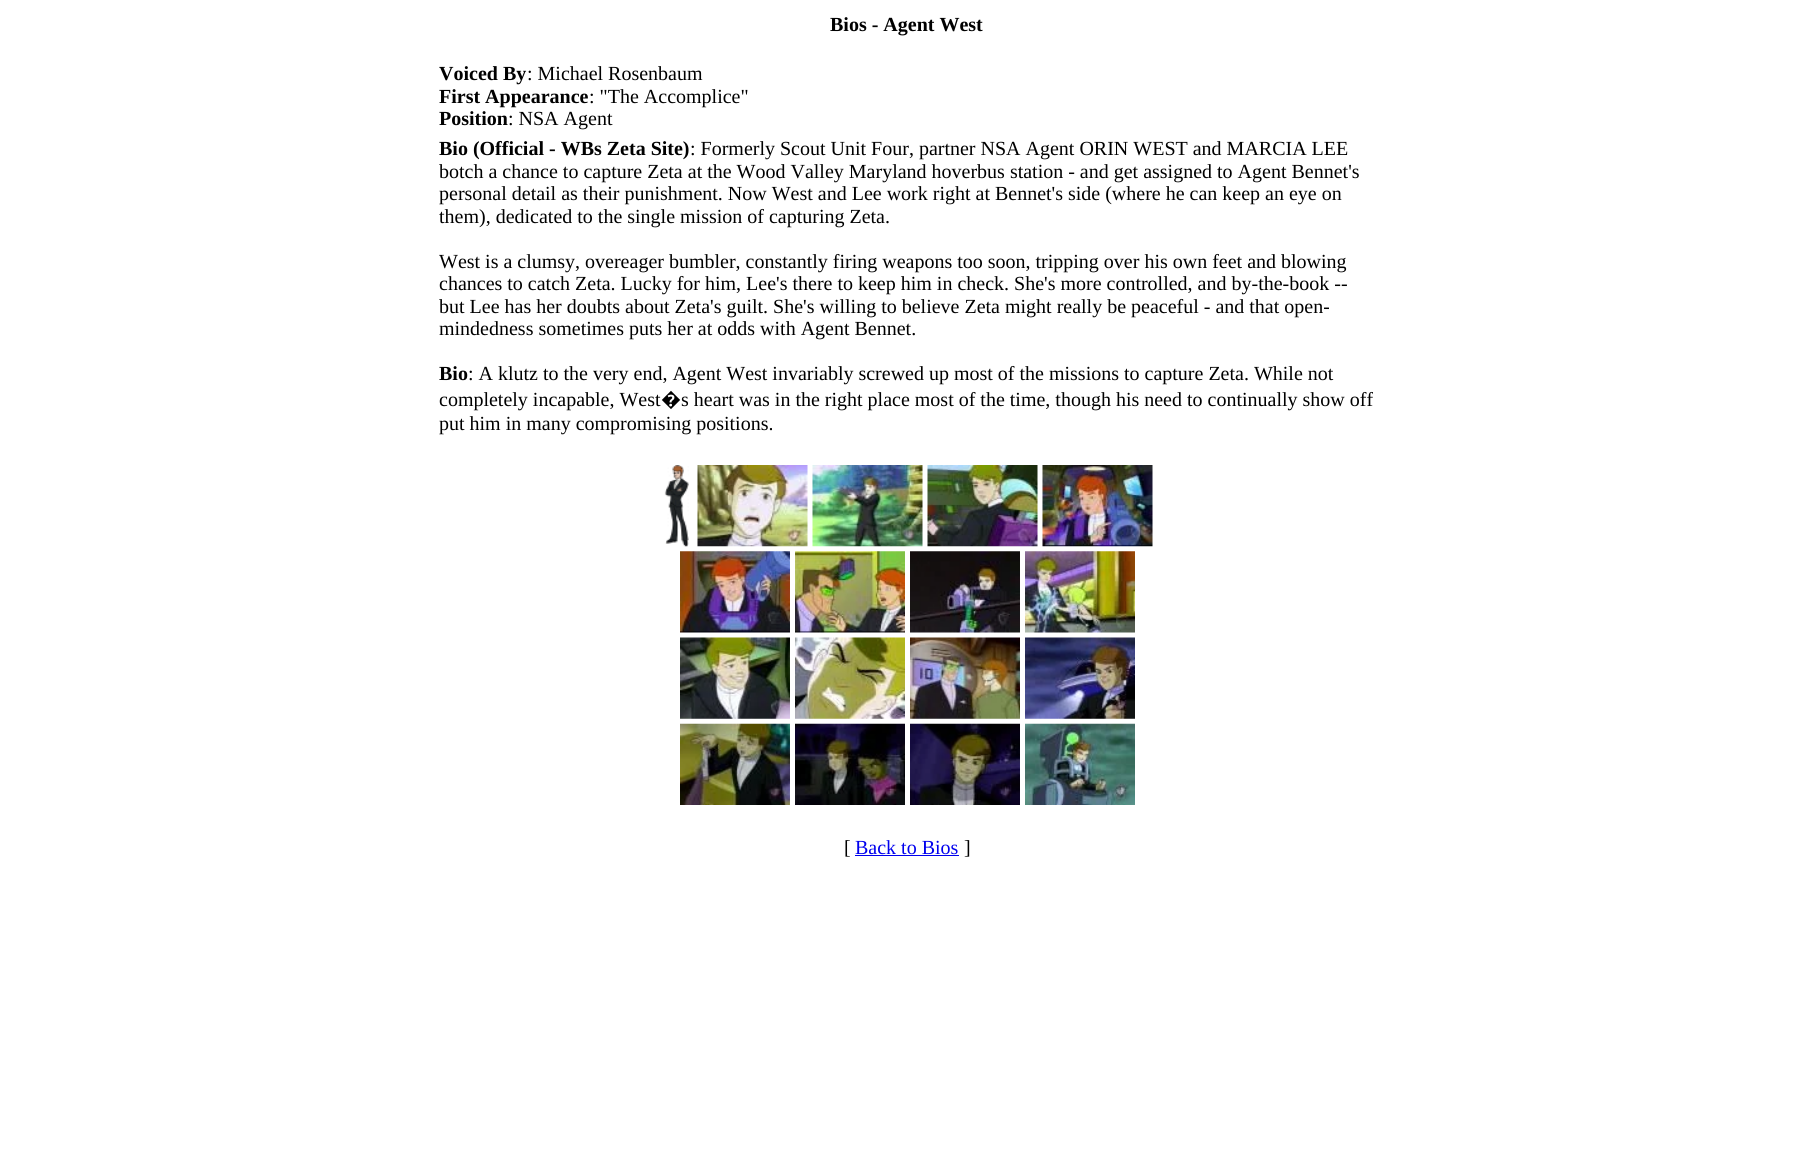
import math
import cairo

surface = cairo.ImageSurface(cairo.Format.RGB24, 1813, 1149)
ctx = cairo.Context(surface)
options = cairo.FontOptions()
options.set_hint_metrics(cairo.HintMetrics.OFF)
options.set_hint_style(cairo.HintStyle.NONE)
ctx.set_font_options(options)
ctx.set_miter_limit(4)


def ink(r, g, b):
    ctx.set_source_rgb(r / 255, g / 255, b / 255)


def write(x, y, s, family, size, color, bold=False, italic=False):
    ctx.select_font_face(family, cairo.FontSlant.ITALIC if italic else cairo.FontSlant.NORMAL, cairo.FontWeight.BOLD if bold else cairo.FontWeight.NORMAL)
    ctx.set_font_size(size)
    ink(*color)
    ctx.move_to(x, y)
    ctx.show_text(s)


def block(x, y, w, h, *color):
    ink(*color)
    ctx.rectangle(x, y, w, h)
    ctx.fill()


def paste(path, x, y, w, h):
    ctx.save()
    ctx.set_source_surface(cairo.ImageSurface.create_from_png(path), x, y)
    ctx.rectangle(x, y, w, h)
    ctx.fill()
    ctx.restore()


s1 = dict(family="Liberation Serif", size=20, color=(0, 0, 0), bold=True)
s2 = dict(family="Liberation Serif", size=20, color=(0, 0, 0))
s3 = dict(family="Noto Sans", size=20, color=(0, 0, 0))
s4 = dict(family="Liberation Serif", size=20, color=(0, 0, 238))

ink(255, 255, 255)
ctx.paint()
write(830, 31, "Bios - Agent West", **s1)
write(439, 80, "Voiced By", **s1)
write(527, 80, ": Michael Rosenbaum", **s2)
write(439, 103, "First Appearance", **s1)
write(589, 103, ": \"The Accomplice\"", **s2)
write(439, 125, "Position", **s1)
write(508, 125, ": NSA Agent", **s2)
write(439, 155, "Bio (Official - WBs Zeta Site)", **s1)
write(690, 155, ": Formerly Scout Unit Four, partner NSA Agent ORIN WEST and MARCIA LEE", **s2)
write(439, 178, "botch a chance to capture Zeta at the Wood Valley Maryland hoverbus station - and get assigned to Agent Bennet's", **s2)
write(439, 200, "personal detail as their punishment. Now West and Lee work right at Bennet's side (where he can keep an eye on", **s2)
write(439, 223, "them), dedicated to the single mission of capturing Zeta.", **s2)
write(439, 268, "West is a clumsy, overeager bumbler, constantly firing weapons too soon, tripping over his own feet and blowing", **s2)
write(439, 290, "chances to catch Zeta. Lucky for him, Lee's there to keep him in check. She's more controlled, and by-the-book --", **s2)
write(439, 313, "but Lee has her doubts about Zeta's guilt. She's willing to believe Zeta might really be peaceful - and that open-", **s2)
write(439, 335, "mindedness sometimes puts her at odds with Agent Bennet.", **s2)
write(439, 380, "Bio", **s1)
write(468, 380, ": A klutz to the very end, Agent West invariably screwed up most of the missions to capture Zeta. While not", **s2)
write(439, 406, "completely incapable, West", **s2)
write(661, 406, "�", **s3)
write(681, 406, "s heart was in the right place most of the time, though his need to continually show off", **s2)
write(439, 430, "put him in many compromising positions.", **s2)
paste("pic1.png", 664, 465, 25, 82)
paste("pic2.png", 697, 465, 111, 82)
paste("pic3.png", 812, 465, 111, 82)
paste("pic4.png", 927, 465, 111, 82)
paste("pic5.png", 1042, 465, 111, 82)
paste("pic6.png", 680, 551, 110, 82)
paste("pic7.png", 795, 551, 110, 82)
paste("pic8.png", 910, 551, 110, 82)
paste("pic9.png", 1025, 551, 110, 82)
paste("pic10.png", 680, 637, 110, 82)
paste("pic11.png", 795, 637, 110, 82)
paste("pic12.png", 910, 637, 110, 82)
paste("pic13.png", 1025, 637, 110, 82)
paste("pic14.png", 680, 723, 110, 82)
paste("pic15.png", 795, 723, 110, 82)
paste("pic16.png", 910, 723, 110, 82)
paste("pic17.png", 1025, 723, 110, 82)
write(844, 854, "[", **s2)
write(855, 854, "Back to Bios", **s4)
block(855, 855, 104, 1, 0, 0, 238)
write(964, 854, "]", **s2)
surface.write_to_png("screenshot.png")
